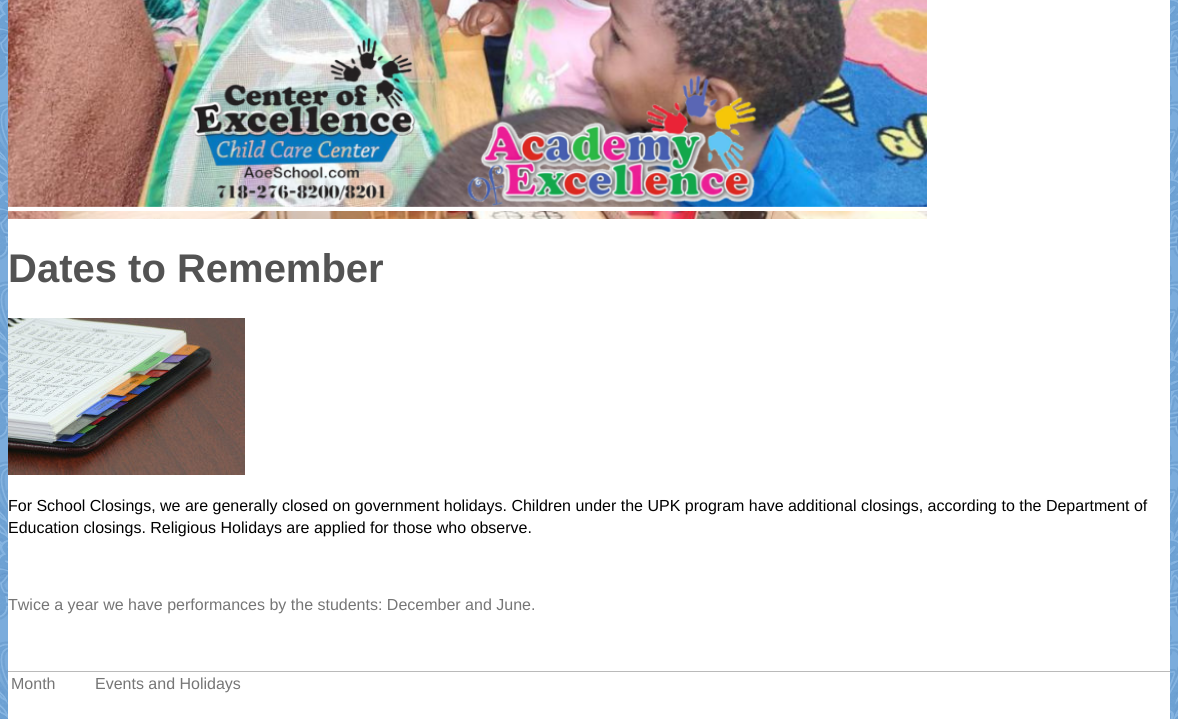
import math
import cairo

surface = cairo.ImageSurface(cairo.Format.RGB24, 1178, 719)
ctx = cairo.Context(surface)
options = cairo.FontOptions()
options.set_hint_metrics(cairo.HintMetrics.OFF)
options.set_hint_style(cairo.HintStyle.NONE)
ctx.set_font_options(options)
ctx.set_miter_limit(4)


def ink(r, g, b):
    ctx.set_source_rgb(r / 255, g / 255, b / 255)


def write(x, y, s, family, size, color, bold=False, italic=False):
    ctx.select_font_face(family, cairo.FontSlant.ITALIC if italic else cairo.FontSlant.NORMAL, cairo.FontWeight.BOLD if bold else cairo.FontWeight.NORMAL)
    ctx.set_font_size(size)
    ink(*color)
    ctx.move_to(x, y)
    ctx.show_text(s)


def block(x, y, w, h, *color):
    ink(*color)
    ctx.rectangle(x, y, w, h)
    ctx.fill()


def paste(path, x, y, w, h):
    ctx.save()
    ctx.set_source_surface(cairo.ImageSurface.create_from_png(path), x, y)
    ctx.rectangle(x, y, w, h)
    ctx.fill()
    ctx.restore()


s1 = dict(family="Liberation Sans", size=40, color=(83, 83, 83), bold=True)
s2 = dict(family="Liberation Sans", size=16, color=(0, 0, 0))
s3 = dict(family="Liberation Sans", size=16, color=(117, 117, 117))

ink(255, 255, 255)
ctx.paint()
paste("pic1.png", 0, 0, 1178, 719)
block(8, 0, 1162, 719, 255, 255, 255)
paste("pic2.png", 8, 0, 920, 207)
paste("pic3.png", 8, 211, 920, 8)
write(8, 282, "Dates to Remember", **s1)
paste("pic4.png", 8, 318, 237, 157)
write(8, 511, "For School Closings, we are generally closed on government holidays. Children under the UPK program have additional closings, according to the Department of", **s2)
write(8, 533, "Education closings. Religious Holidays are applied for those who observe.", **s2)
write(8, 610, "Twice a year we have performances by the students: December and June.", **s3)
block(8, 671, 1162, 1, 186, 186, 186)
write(11, 689, "Month", **s3)
write(95, 689, "Events and Holidays", **s3)
surface.write_to_png("screenshot.png")
